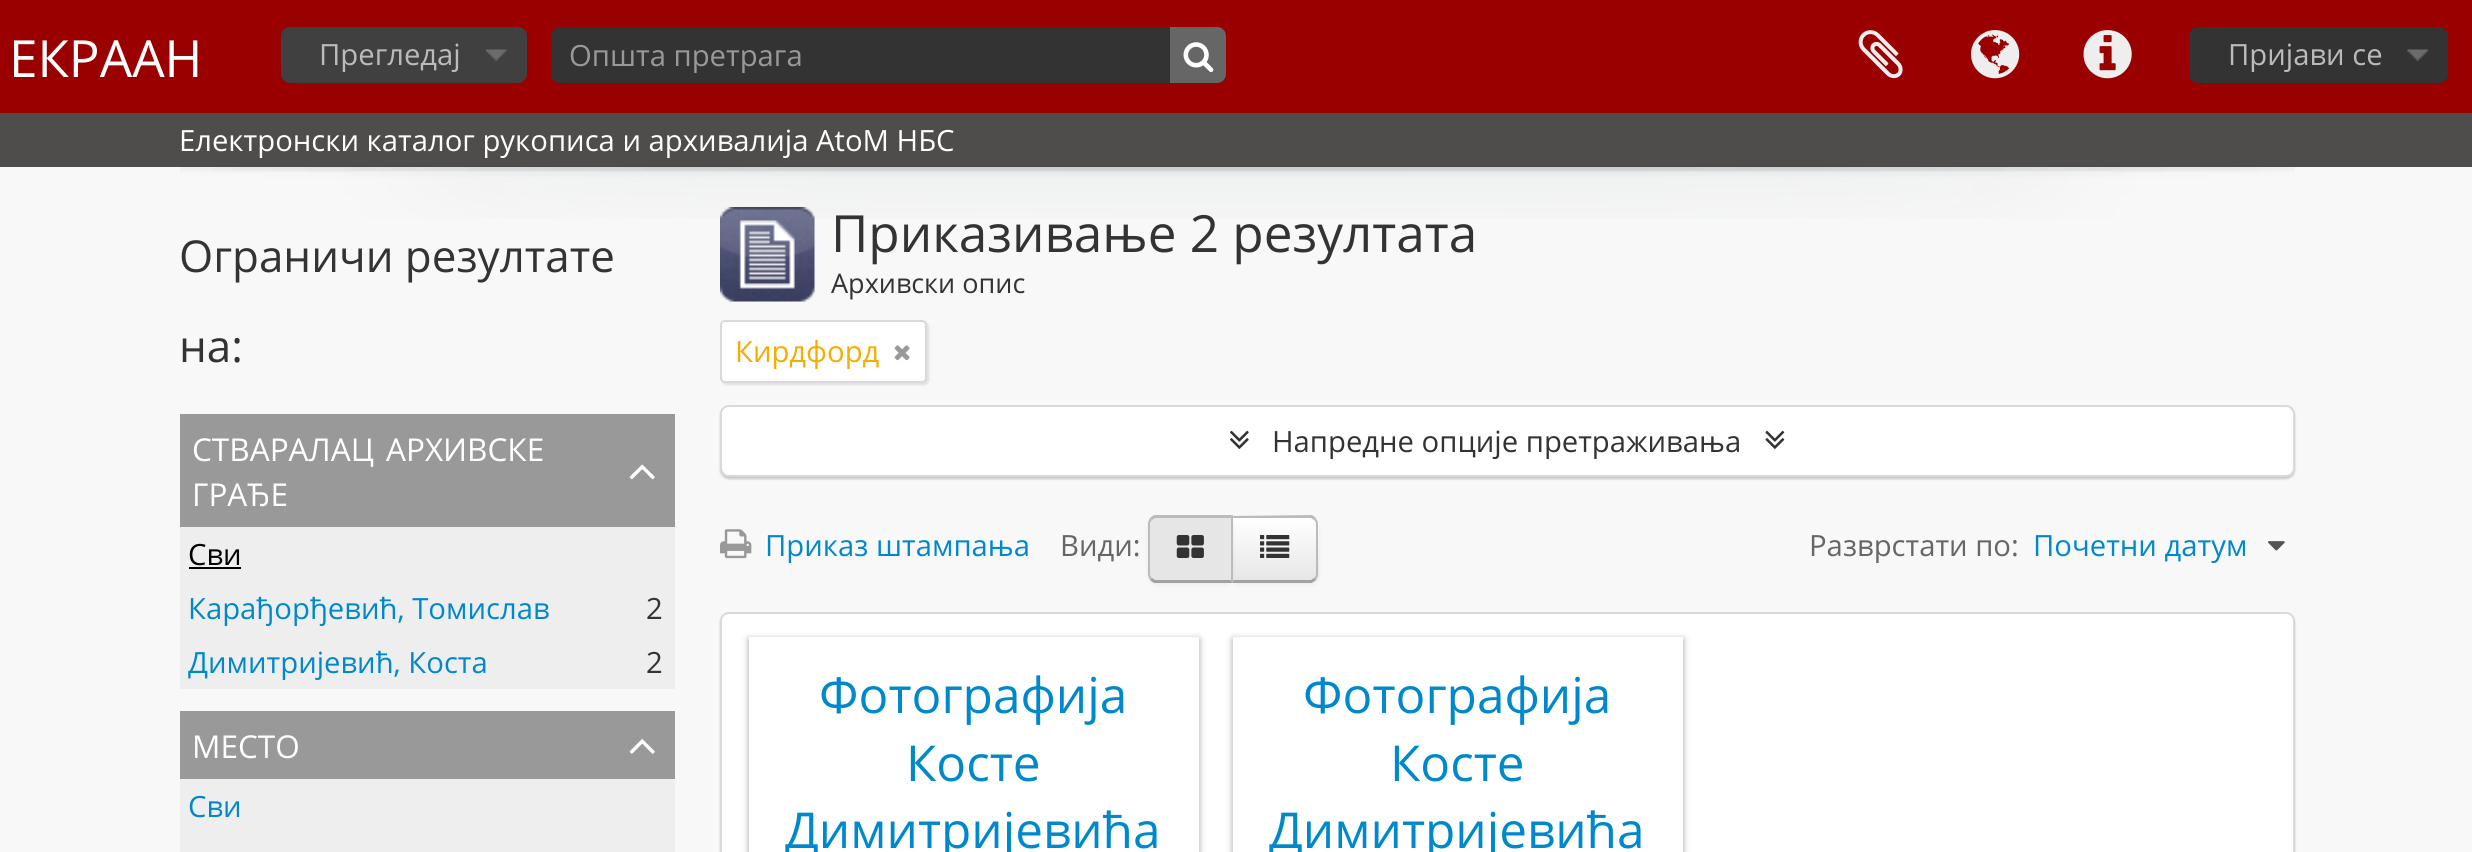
import math
import cairo

surface = cairo.ImageSurface(cairo.Format.RGB24, 2472, 852)
ctx = cairo.Context(surface)
options = cairo.FontOptions()
options.set_hint_metrics(cairo.HintMetrics.OFF)
options.set_hint_style(cairo.HintStyle.NONE)
ctx.set_font_options(options)
ctx.set_miter_limit(4)


def ink(r, g, b):
    ctx.set_source_rgb(r / 255, g / 255, b / 255)


def write(x, y, s, family, size, color, bold=False, italic=False):
    ctx.select_font_face(family, cairo.FontSlant.ITALIC if italic else cairo.FontSlant.NORMAL, cairo.FontWeight.BOLD if bold else cairo.FontWeight.NORMAL)
    ctx.set_font_size(size)
    ink(*color)
    ctx.move_to(x, y)
    ctx.show_text(s)


def block(x, y, w, h, *color):
    ink(*color)
    ctx.rectangle(x, y, w, h)
    ctx.fill()


def round_path(x, y, w, h, r):
    ctx.new_sub_path()
    for i, (u, v) in enumerate([(x + w - r, y + h - r), (x + r, y + h - r), (x + r, y + r), (x + w - r, y + r)]):
        ctx.arc(u, v, r, i * math.pi / 2, (i + 1) * math.pi / 2)
    ctx.close_path()


def blur_box(x, y, w, h, r, blur, alpha):
    ctx.push_group_with_content(cairo.Content.ALPHA)
    ctx.set_operator(cairo.Operator.SOURCE)
    for i in range(15, -16, -2):
        e = blur * i / 6
        if min(w, h) + 2 * e > 0:
            ctx.set_source_rgba(0, 0, 0, alpha * math.erfc((i - 1) / 8.5) / 2)
            round_path(x - e, y - e, w + 2 * e, h + 2 * e, max(0, min(r + e + blur * .6, min(w, h) / 2 + e)))
            ctx.fill()
    ctx.mask(ctx.pop_group())


def paste(path, x, y, w, h):
    ctx.save()
    ctx.set_source_surface(cairo.ImageSurface.create_from_png(path), x, y)
    ctx.rectangle(x, y, w, h)
    ctx.fill()
    ctx.restore()


s1 = dict(family="Open Sans", size=51.25, color=(255, 255, 255))
s2 = dict(family="Open Sans", size=29.25, color=(187, 187, 187))
s3 = dict(family="Open Sans", size=29.25, color=(153, 153, 153))
s4 = dict(family="Open Sans", size=29.25, color=(255, 255, 255))
s5 = dict(family="Open Sans", size=43.9, color=(51, 51, 51))
s6 = dict(family="Open Sans", size=31.5, color=(255, 255, 255))
s7 = dict(family="Open Sans", size=29.25, color=(0, 0, 0))
s8 = dict(family="Open Sans", size=29.25, color=(0, 136, 204))
s9 = dict(family="Open Sans", size=29.25, color=(51, 51, 51))
s10 = dict(family="Open Sans", size=51.25, color=(51, 51, 51))
s11 = dict(family="Open Sans", size=27, color=(51, 51, 51))
s12 = dict(family="Open Sans", size=29.25, color=(246, 172, 0))
s13 = dict(family="Open Sans", size=29.25, color=(102, 102, 102))
s14 = dict(family="Open Sans", size=49.5, color=(0, 136, 204))

ink(248, 248, 248)
ctx.paint()
block(0, 0, 2472, 113, 155, 0, 0)
write(9, 77, "ЕКРААН", **s1)
ink(64, 64, 64)
round_path(281, 27, 246, 56, 9)
ctx.fill()
paste("pic1.png", 486, 49, 21, 12)
write(319, 65, "Прегледај", **s2)
ink(51, 51, 51)
round_path(551, 27, 675, 56, 9)
ctx.fill()
ctx.set_source_rgba(0, 0, 0, 0.07)
ctx.new_path()
ctx.move_to(560, 29)
ctx.line_to(1217, 29)
ctx.curve_to(1222, 29, 1226, 33, 1226, 38)
ctx.line_to(1226, 36)
ctx.curve_to(1226, 31, 1222, 27, 1217, 27)
ctx.line_to(560, 27)
ctx.curve_to(555, 27, 551, 31, 551, 36)
ctx.line_to(551, 38)
ctx.curve_to(551, 33, 555, 29, 560, 29)
ctx.close_path()
ctx.fill()
write(569, 66, "Општа претрага", **s3)
ink(102, 102, 102)
ctx.new_path()
ctx.move_to(1170, 27)
ctx.line_to(1217, 27)
ctx.curve_to(1222, 27, 1226, 31, 1226, 36)
ctx.line_to(1226, 74)
ctx.curve_to(1226, 79, 1222, 83, 1217, 83)
ctx.line_to(1170, 83)
ctx.close_path()
ctx.fill()
paste("pic2.png", 1183, 42, 31, 31)
paste("pic3.png", 1858, 30, 45, 49)
paste("pic4.png", 1971, 30, 49, 49)
paste("pic5.png", 2083, 30, 49, 49)
ink(51, 51, 51)
round_path(2189, 27, 259, 56, 9)
ctx.fill()
paste("pic6.png", 2407, 49, 22, 12)
write(2228, 65, "Пријави се", **s2)
paste("pic7.png", 180, 166, 2115, 53)
ctx.set_source_rgba(0.086, 0.082, 0.078, 0.75)
ctx.rectangle(0, 113, 2472, 54)
ctx.fill()
write(179, 151, "Електронски каталог рукописа и архивалија AtoM НБС", **s4)
write(179, 272, "Ограничи резултате", **s5)
write(179, 362, "на:", **s5)
block(180, 414, 495, 113, 153, 153, 153)
write(192, 461, "СТВАРАЛАЦ", **s6)
write(386, 461, "АРХИВСКЕ", **s6)
paste("pic8.png", 629, 464, 26, 16)
write(192, 506, "ГРАЂЕ", **s6)
block(180, 527, 495, 162, 238, 238, 238)
write(188, 565, "Сви", **s7)
block(189, 567, 52, 2, 0, 0, 0)
write(188, 619, "Карађорђевић, Томислав", **s8)
write(646, 619, "2", **s9)
write(188, 673, "Димитријевић, Коста", **s8)
write(646, 673, "2", **s9)
block(180, 711, 495, 68, 153, 153, 153)
write(192, 758, "МЕСТО", **s6)
paste("pic9.png", 629, 739, 26, 15)
block(180, 779, 495, 73, 238, 238, 238)
write(188, 817, "Сви", **s8)
paste("pic10.png", 720, 207, 95, 95)
write(831, 252, "Приказивање 2 резултата", **s10)
write(831, 293, "Архивски опис", **s11)
ink(0, 0, 0)
blur_box(722, 322, 207, 63, 5, 1, 0.1)
ink(255, 255, 255)
round_path(721, 321, 205, 61, 4)
ctx.fill_preserve()
ink(217, 217, 217)
ctx.stroke()
write(735, 362, "Кирдфорд", **s12)
paste("pic11.png", 894, 345, 16, 16)
ink(0, 0, 0)
blur_box(720, 407, 1575, 72, 9, 1, 0.2)
ink(255, 255, 255)
round_path(721, 406, 1573, 70, 8)
ctx.fill_preserve()
ink(217, 217, 217)
ctx.stroke()
paste("pic12.png", 1230, 430, 19, 19)
write(1272, 452, "Напредне опције претраживања", **s9)
paste("pic13.png", 1765, 430, 20, 19)
paste("pic14.png", 720, 529, 32, 30)
write(765, 556, "Приказ штампања", **s8)
write(1060, 556, "Види:", **s13)
ink(0, 0, 0)
blur_box(1231, 518, 88, 67, 9, 2, 0.05)
ink(245, 245, 245)
ctx.new_path()
ctx.move_to(1231, 515)
ctx.line_to(1310, 515)
ctx.curve_to(1315, 515, 1319, 519, 1319, 524)
ctx.line_to(1319, 574)
ctx.curve_to(1319, 579, 1315, 583, 1310, 583)
ctx.line_to(1231, 583)
ctx.close_path()
ctx.fill()
ctx.save()
ctx.new_path()
ctx.move_to(1231, 515)
ctx.line_to(1310, 515)
ctx.curve_to(1315, 515, 1319, 519, 1319, 524)
ctx.line_to(1319, 574)
ctx.curve_to(1319, 579, 1315, 583, 1310, 583)
ctx.line_to(1231, 583)
ctx.close_path()
ctx.clip()
gradient = cairo.LinearGradient(1275, 518, 1275, 581)
gradient.add_color_stop_rgba(0, 1, 1, 1, 1)
gradient.add_color_stop_rgba(1, 0.902, 0.902, 0.902, 1)
ctx.set_source(gradient)
ctx.rectangle(1233, 518, 86, 63)
ctx.fill()
ctx.restore()
ink(187, 187, 187)
ctx.new_path()
ctx.move_to(1231, 516)
ctx.line_to(1312, 515)
ctx.curve_to(1313, 516, 1315, 517, 1316, 518)
ctx.line_to(1314, 520)
ctx.line_to(1311, 518)
ctx.line_to(1234, 518)
ctx.close_path()
ctx.fill()
ctx.new_path()
ctx.move_to(1316, 518)
ctx.curve_to(1317, 520, 1318, 522, 1318, 524)
ctx.line_to(1318, 574)
ctx.curve_to(1318, 576, 1317, 578, 1316, 580)
ctx.line_to(1314, 578)
ctx.curve_to(1315, 577, 1316, 576, 1316, 574)
ctx.line_to(1316, 524)
ctx.curve_to(1316, 522, 1315, 521, 1314, 520)
ctx.close_path()
ctx.fill()
ink(162, 162, 162)
ctx.new_path()
ctx.move_to(1231, 583)
ctx.line_to(1234, 580)
ctx.line_to(1311, 580)
ctx.line_to(1314, 578)
ctx.line_to(1316, 580)
ctx.curve_to(1315, 581, 1313, 582, 1312, 583)
ctx.close_path()
ctx.fill()
ink(187, 187, 187)
ctx.new_path()
ctx.move_to(1233, 518)
ctx.line_to(1233, 580)
ctx.line_to(1234, 580)
ctx.line_to(1231, 582)
ctx.line_to(1231, 516)
ctx.line_to(1234, 518)
ctx.close_path()
ctx.fill()
ink(0, 0, 0)
blur_box(1148, 518, 85, 67, 9, 2, 0.05)
ink(230, 230, 230)
ctx.new_path()
ctx.move_to(1157, 515)
ctx.line_to(1233, 515)
ctx.line_to(1233, 583)
ctx.line_to(1157, 583)
ctx.curve_to(1152, 583, 1148, 579, 1148, 574)
ctx.line_to(1148, 524)
ctx.curve_to(1148, 519, 1152, 515, 1157, 515)
ctx.close_path()
ctx.fill()
ink(187, 187, 187)
ctx.new_path()
ctx.move_to(1156, 518)
ctx.curve_to(1155, 518, 1153, 519, 1152, 520)
ctx.line_to(1150, 518)
ctx.curve_to(1151, 517, 1153, 516, 1154, 515)
ctx.line_to(1233, 515)
ctx.line_to(1230, 518)
ctx.close_path()
ctx.fill()
ctx.new_path()
ctx.move_to(1233, 515)
ctx.line_to(1230, 518)
ctx.line_to(1231, 518)
ctx.line_to(1231, 580)
ctx.line_to(1230, 580)
ctx.line_to(1233, 583)
ctx.close_path()
ctx.fill()
ink(162, 162, 162)
ctx.new_path()
ctx.move_to(1233, 583)
ctx.line_to(1154, 583)
ctx.curve_to(1153, 582, 1151, 581, 1150, 580)
ctx.line_to(1152, 578)
ctx.line_to(1155, 580)
ctx.line_to(1230, 580)
ctx.close_path()
ctx.fill()
ink(187, 187, 187)
ctx.new_path()
ctx.move_to(1150, 580)
ctx.curve_to(1149, 578, 1148, 576, 1148, 574)
ctx.line_to(1148, 524)
ctx.curve_to(1148, 522, 1149, 520, 1150, 518)
ctx.line_to(1152, 520)
ctx.curve_to(1151, 521, 1150, 522, 1150, 524)
ctx.line_to(1150, 574)
ctx.curve_to(1150, 576, 1151, 577, 1152, 578)
ctx.close_path()
ctx.fill()
paste("pic15.png", 1176, 535, 28, 23)
paste("pic16.png", 1260, 535, 30, 23)
write(1809, 556, "Разврстати по:", **s13)
write(2033, 556, "Почетни датум", **s8)
paste("pic17.png", 2268, 541, 17, 10)
ink(0, 0, 0)
blur_box(720, 614, 1575, 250, 9, 1, 0.2)
ink(255, 255, 255)
round_path(721, 613, 1573, 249, 8)
ctx.fill_preserve()
ink(217, 217, 217)
ctx.stroke()
ink(25, 25, 25)
blur_box(749, 639, 450, 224, 0, 3.5, 0.4)
block(749, 637, 450, 215, 255, 255, 255)
write(819, 713, "Фотографија", **s14)
write(906, 781, "Косте", **s14)
write(785, 848, "Димитријевића", **s14)
ctx.save()
ctx.set_fill_rule(cairo.FillRule.EVEN_ODD)
ctx.new_path()
ctx.move_to(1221, 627)
ctx.line_to(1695, 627)
ctx.line_to(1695, 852)
ctx.line_to(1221, 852)
ctx.close_path()
ctx.move_to(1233, 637)
ctx.line_to(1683, 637)
ctx.line_to(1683, 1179)
ctx.line_to(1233, 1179)
ctx.close_path()
ctx.clip()
ink(25, 25, 25)
blur_box(1233, 639, 450, 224, 0, 3.5, 0.4)
ctx.restore()
write(1303, 713, "Фотографија", **s14)
write(1390, 781, "Косте", **s14)
write(1269, 848, "Димитријевића", **s14)
surface.write_to_png("screenshot.png")
